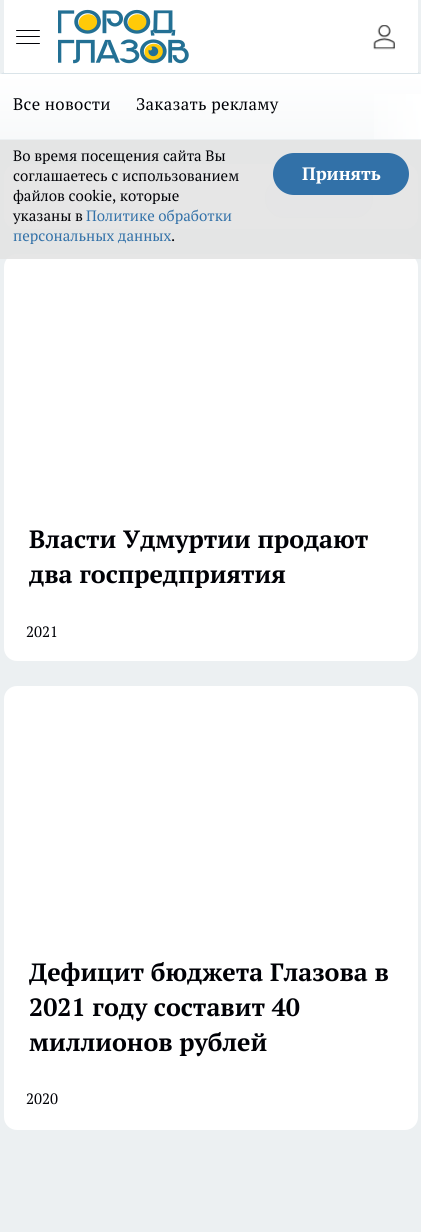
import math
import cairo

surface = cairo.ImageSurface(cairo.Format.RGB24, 421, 1232)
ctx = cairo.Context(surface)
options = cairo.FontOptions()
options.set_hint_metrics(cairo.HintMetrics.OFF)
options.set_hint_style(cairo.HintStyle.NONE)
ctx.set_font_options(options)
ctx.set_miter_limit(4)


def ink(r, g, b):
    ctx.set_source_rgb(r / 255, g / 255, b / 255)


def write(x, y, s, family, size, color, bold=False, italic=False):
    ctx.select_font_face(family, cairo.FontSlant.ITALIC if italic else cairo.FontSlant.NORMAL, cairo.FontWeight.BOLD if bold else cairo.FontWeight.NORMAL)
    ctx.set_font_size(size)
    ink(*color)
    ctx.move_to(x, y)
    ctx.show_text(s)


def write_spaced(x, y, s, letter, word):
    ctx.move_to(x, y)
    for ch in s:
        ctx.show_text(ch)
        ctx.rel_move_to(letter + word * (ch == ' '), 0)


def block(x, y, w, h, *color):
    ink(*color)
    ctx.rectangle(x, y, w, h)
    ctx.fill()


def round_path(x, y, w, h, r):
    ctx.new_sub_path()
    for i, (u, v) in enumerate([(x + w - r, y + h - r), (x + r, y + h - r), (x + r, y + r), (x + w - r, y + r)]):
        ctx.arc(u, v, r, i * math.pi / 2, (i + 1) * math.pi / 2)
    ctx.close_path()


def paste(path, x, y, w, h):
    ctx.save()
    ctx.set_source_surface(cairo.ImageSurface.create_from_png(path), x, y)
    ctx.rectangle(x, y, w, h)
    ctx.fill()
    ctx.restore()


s1 = dict(family="PT Serif", size=15, color=(0, 1, 6))
s2 = dict(family="PT Serif", size=15, color=(50, 113, 168))
s3 = dict(family="PT Serif", size=18, color=(255, 255, 255), bold=True)
s4 = dict(family="PT Serif", size=25, color=(0, 1, 6), bold=True)

ink(236, 240, 242)
ctx.paint()
ink(218, 228, 233)
ctx.new_path()
ctx.move_to(421, 74)
ctx.line_to(0, 74)
ctx.line_to(4, 72)
ctx.line_to(418, 72)
ctx.close_path()
ctx.fill()
ink(236, 240, 242)
ctx.new_path()
ctx.move_to(0, 74)
ctx.line_to(0, 0)
ctx.line_to(4, 0)
ctx.line_to(4, 72)
ctx.close_path()
ctx.fill()
block(4, 0, 414, 73, 255, 255, 255)
ink(0, 1, 6)
round_path(16, 30, 24, 1, 0.5)
ctx.fill()
round_path(16, 43, 24, 1, 0.5)
ctx.fill()
round_path(16, 36, 24, 1, 0.5)
ctx.fill()
paste("pic1.png", 58, 9, 131, 55)
paste("pic2.png", 373, 25, 22, 25)
gradient = cairo.LinearGradient(211, 74, 211, 139)
gradient.add_color_stop_rgba(0, 1, 1, 1, 1)
gradient.add_color_stop_rgba(1, 0.969, 0.976, 0.98, 1)
ctx.set_source(gradient)
ctx.rectangle(0, 74, 421, 65)
ctx.fill()
ctx.select_font_face("PT Serif")
ctx.set_font_size(16.75)
ink(0, 1, 6)
write_spaced(13, 110, "Все новости", 0.3, 0)
write_spaced(136, 110, "Заказать рекламу", 0.3, 0)
gradient = cairo.LinearGradient(350, 106, 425, 106)
gradient.add_color_stop_rgba(0, 1, 1, 1, 0)
gradient.add_color_stop_rgba(1, 1, 1, 1, 1)
ctx.set_source(gradient)
ctx.rectangle(374, 94, 47, 45)
ctx.fill()
ink(255, 255, 255)
round_path(4, 164, 414, 65, 13)
ctx.fill()
ink(247, 249, 250)
round_path(265.5, 178.5, 107, 39, 18.5)
ctx.fill_preserve()
ink(236, 240, 242)
ctx.set_line_width(1)
ctx.stroke()
ink(255, 255, 255)
round_path(4, 254, 414, 407, 13)
ctx.fill()
ctx.set_source_rgba(0.89, 0.89, 0.89, 0.91)
ctx.rectangle(0, 140, 421, 119)
ctx.fill()
write(13, 161, "Во время посещения сайта Вы", **s1)
write(13, 181, "соглашаетесь с использованием", **s1)
write(13, 201, "файлов cookie, которые", **s1)
write(13, 221, "указаны в", **s1)
write(86, 221, "Политике обработки", **s2)
write(13, 241, "персональных данных", **s2)
write(171, 241, ".", **s1)
ink(50, 113, 168)
round_path(273, 153, 136, 42, 21)
ctx.fill()
write(302, 180, "Принять", **s3)
write(29, 548, "Власти Удмуртии продают", **s4)
write(29, 583, "два госпредприятия", **s4)
write(26, 637, "2021", **s1)
ink(255, 255, 255)
round_path(4, 686, 414, 444, 13)
ctx.fill()
write(29, 981, "Дефицит бюджета Глазова в", **s4)
write(29, 1016, "2021 году составит 40", **s4)
write(29, 1051, "миллионов рублей", **s4)
write(26, 1104, "2020", **s1)
surface.write_to_png("screenshot.png")
